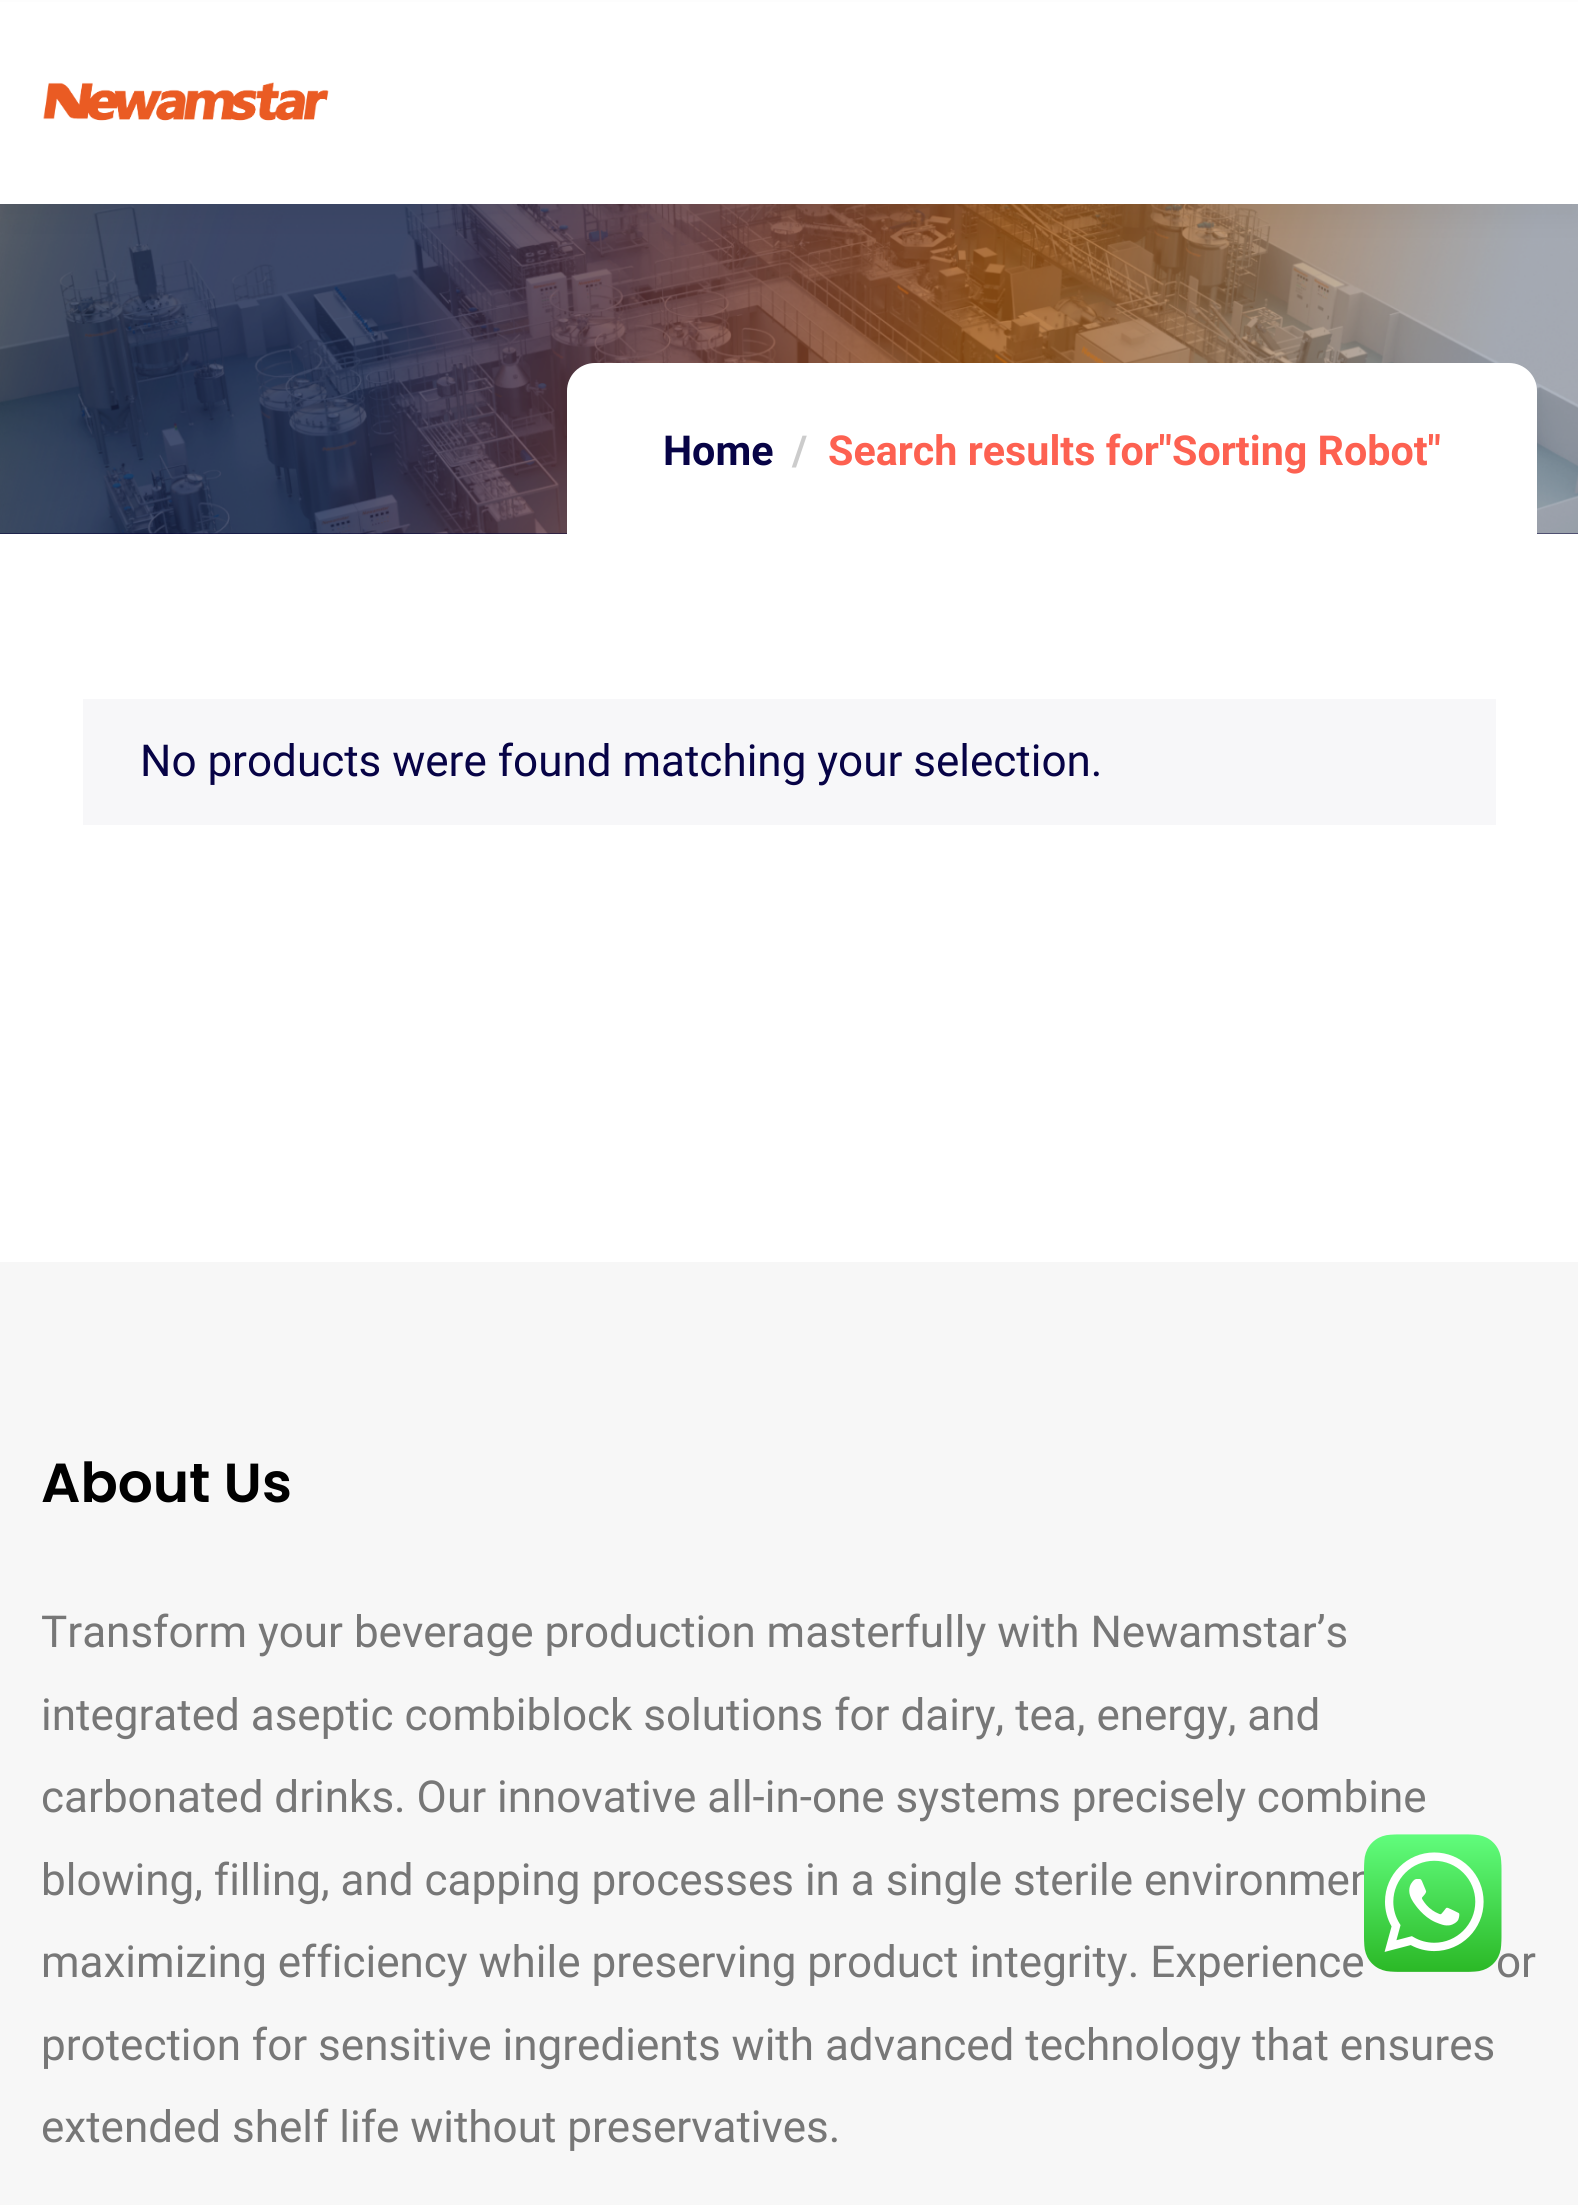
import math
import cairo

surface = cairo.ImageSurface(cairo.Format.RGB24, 1578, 2205)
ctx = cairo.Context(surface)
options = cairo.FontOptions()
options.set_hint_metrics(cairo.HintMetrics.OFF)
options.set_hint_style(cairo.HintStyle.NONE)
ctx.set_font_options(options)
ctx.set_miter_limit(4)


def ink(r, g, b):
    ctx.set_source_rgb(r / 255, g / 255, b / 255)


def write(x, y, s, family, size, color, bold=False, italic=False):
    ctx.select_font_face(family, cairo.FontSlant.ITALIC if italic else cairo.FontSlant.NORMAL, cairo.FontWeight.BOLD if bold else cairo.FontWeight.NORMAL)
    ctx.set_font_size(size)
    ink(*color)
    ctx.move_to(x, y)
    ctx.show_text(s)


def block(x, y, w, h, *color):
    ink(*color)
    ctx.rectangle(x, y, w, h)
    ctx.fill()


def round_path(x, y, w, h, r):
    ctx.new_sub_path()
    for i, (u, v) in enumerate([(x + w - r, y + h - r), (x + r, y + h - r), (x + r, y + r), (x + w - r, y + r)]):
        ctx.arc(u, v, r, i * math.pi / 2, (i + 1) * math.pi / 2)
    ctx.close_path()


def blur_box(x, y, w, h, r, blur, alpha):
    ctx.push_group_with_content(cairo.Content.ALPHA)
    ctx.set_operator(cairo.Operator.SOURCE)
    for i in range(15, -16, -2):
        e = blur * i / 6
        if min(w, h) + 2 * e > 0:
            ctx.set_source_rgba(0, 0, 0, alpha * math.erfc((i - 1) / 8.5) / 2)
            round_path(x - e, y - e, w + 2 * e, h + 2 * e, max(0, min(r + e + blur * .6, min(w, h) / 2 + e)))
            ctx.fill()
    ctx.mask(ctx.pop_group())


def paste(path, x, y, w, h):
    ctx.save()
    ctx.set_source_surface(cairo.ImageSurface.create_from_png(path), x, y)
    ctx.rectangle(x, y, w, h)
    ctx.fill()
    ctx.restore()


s1 = dict(family="Roboto", size=41.25, color=(7, 3, 70), bold=True)
s2 = dict(family="Roboto", size=41.25, color=(204, 204, 204), bold=True)
s3 = dict(family="Roboto", size=41.25, color=(253, 97, 81), bold=True)
s4 = dict(family="Roboto", size=44, color=(7, 3, 70))
s5 = dict(family="Poppins SemiBold", size=55, color=(0, 0, 0))
s6 = dict(family="Roboto", size=44, color=(119, 119, 119))

ink(255, 255, 255)
ctx.paint()
block(0, 533, 1578, 1, 6, 2, 57)
paste("pic2.png", 0, 204, 1578, 330)
ink(0, 0, 0)
blur_box(0, 14, 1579, 203, 0, 14, 0.05)
block(0, 2, 1578, 202, 255, 255, 255)
paste("pic1.png", 43, 82, 286, 39)
ctx.new_path()
ctx.move_to(595, 363)
ctx.line_to(1509, 363)
ctx.curve_to(1524.5, 363, 1537, 375.5, 1537, 391)
ctx.line_to(1537, 534)
ctx.line_to(567, 534)
ctx.line_to(567, 391)
ctx.curve_to(567, 375.5, 579.5, 363, 595, 363)
ctx.close_path()
ctx.fill()
write(663, 465, "Home", **s1)
write(792, 465, "/", **s2)
write(828, 465, "Search results for\"Sorting Robot\"", **s3)
block(83, 699, 1413, 126, 247, 247, 249)
write(140, 776, "No products were found matching your selection.", **s4)
block(0, 1262, 1578, 943, 247, 247, 247)
write(41, 1502, "About Us", **s5)
write(41, 1647, "Transform your beverage production masterfully with Newamstar’s", **s6)
write(41, 1730, "integrated aseptic combiblock solutions for dairy, tea, energy, and", **s6)
write(41, 1812, "carbonated drinks. Our innovative all-in-one systems precisely combine", **s6)
write(41, 1895, "blowing, filling, and capping processes in a single sterile environmen", **s6)
write(41, 1977, "maximizing efficiency while preserving product integrity. Experience", **s6)
write(1496, 1977, "or", **s6)
write(41, 2060, "protection for sensitive ingredients with advanced technology that ensures", **s6)
write(41, 2142, "extended shelf life without preservatives.", **s6)
paste("pic3.png", 1364, 1834, 138, 138)
surface.write_to_png("screenshot.png")
